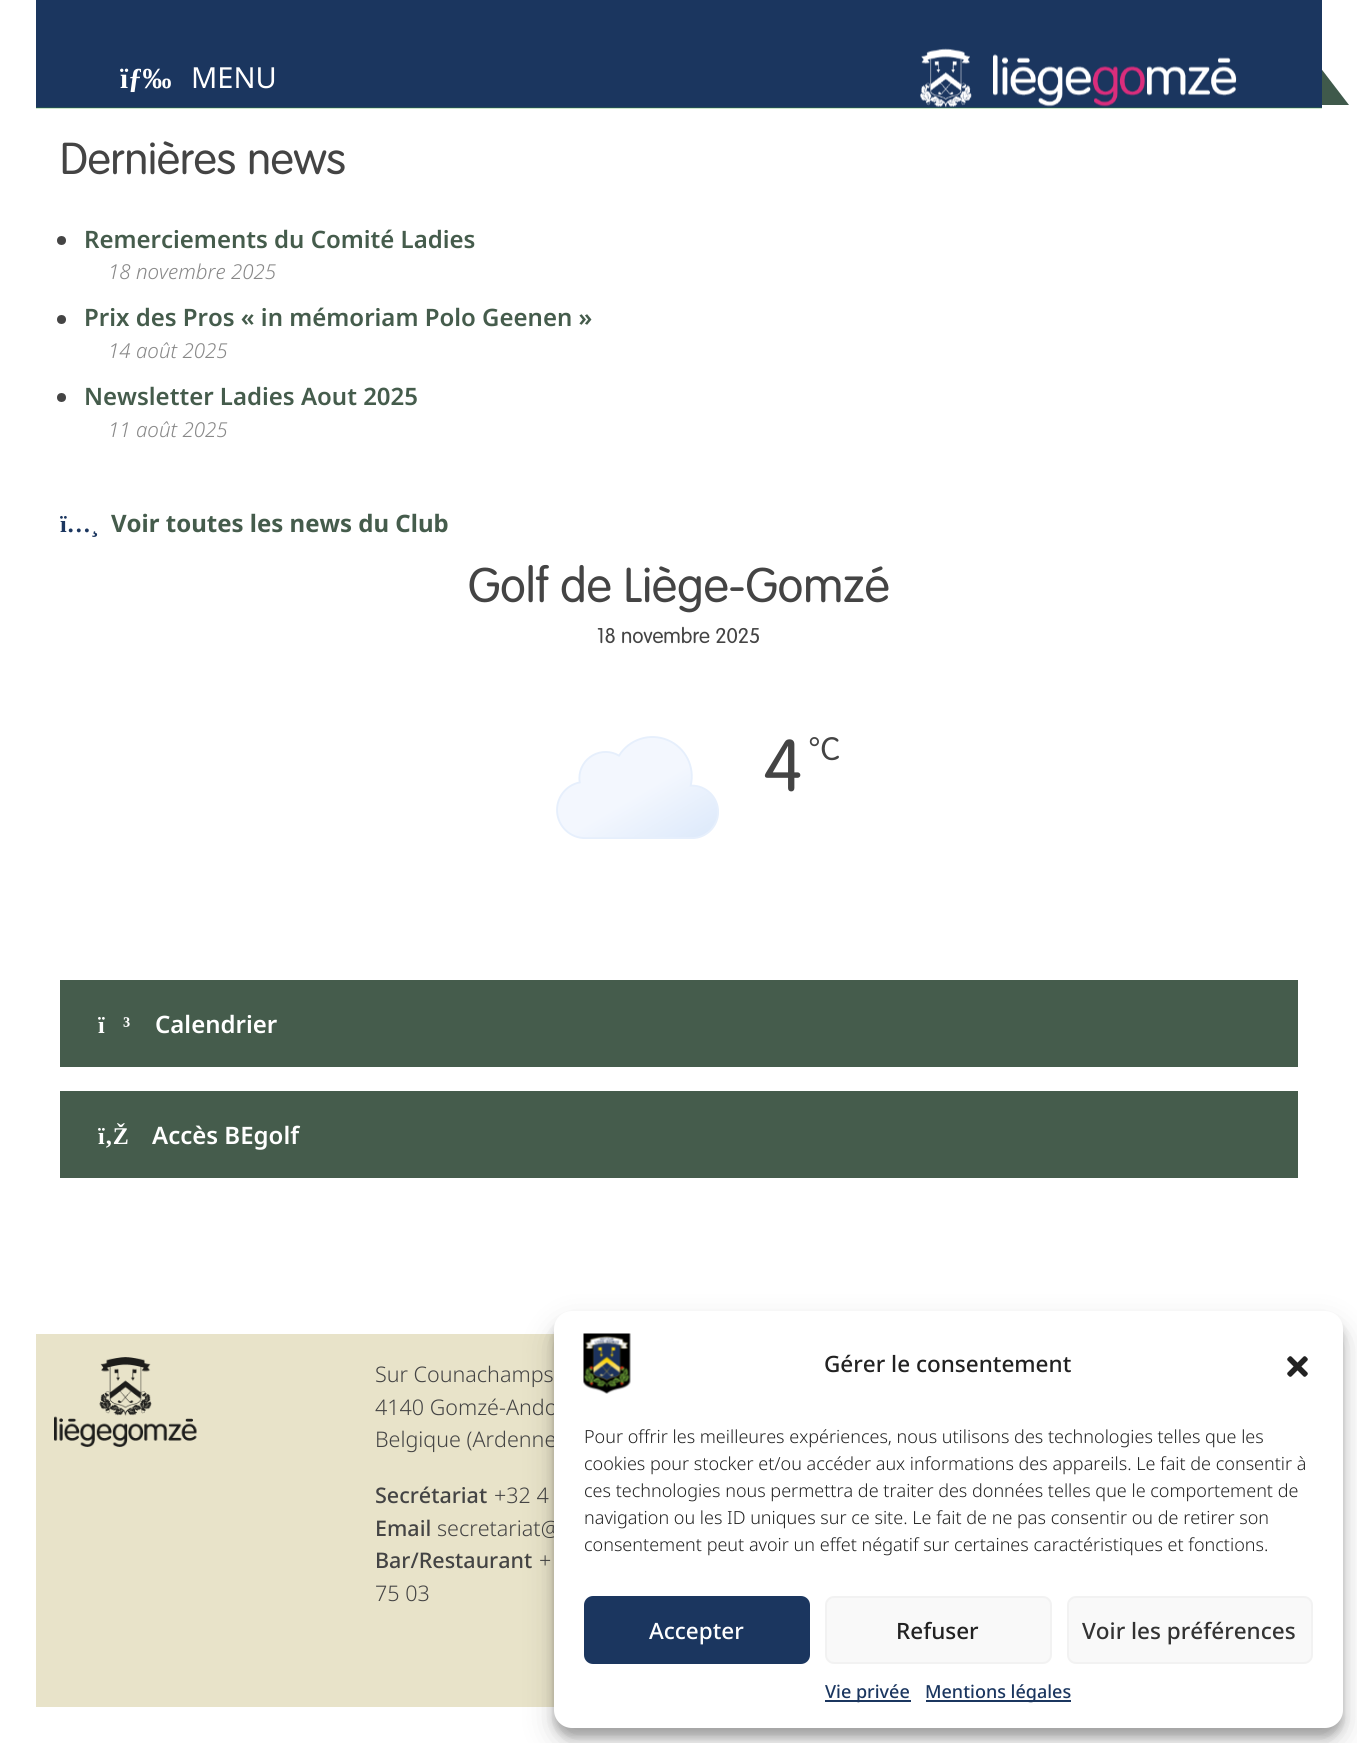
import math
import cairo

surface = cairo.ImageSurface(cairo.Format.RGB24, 1357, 1743)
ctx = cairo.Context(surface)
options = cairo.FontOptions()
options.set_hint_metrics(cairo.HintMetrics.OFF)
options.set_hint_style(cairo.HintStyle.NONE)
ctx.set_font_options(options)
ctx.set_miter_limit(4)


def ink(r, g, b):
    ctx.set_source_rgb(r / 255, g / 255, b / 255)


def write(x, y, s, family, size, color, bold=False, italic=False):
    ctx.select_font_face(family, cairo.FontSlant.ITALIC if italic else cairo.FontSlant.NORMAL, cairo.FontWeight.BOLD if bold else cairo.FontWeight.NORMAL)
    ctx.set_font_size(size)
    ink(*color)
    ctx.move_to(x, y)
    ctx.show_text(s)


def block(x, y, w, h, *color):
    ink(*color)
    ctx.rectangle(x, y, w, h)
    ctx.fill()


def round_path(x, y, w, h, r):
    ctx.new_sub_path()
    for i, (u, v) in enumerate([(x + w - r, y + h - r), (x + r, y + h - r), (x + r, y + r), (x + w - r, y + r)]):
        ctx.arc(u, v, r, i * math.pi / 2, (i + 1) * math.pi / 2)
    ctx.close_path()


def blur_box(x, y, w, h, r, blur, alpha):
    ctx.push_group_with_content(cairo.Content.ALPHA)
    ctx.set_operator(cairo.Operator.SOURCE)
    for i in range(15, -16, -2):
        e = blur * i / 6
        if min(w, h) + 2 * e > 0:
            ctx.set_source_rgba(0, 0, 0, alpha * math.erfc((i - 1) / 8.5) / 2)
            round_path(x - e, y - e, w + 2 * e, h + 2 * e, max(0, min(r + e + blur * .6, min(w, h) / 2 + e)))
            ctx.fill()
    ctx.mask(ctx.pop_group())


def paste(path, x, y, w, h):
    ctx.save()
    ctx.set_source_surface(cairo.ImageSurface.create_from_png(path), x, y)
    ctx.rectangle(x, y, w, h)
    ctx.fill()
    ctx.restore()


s1 = dict(family="Liberation Serif", size=29, color=(255, 255, 255), bold=True)
s2 = dict(family="Noto Sans", size=29, color=(255, 255, 255))
s3 = dict(family="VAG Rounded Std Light", size=44, color=(68, 68, 68))
s4 = dict(family="Noto Sans SemiBold", size=24, color=(69, 92, 76))
s5 = dict(family="Noto Sans Light", size=20.5, color=(136, 136, 136), italic=True)
s6 = dict(family="Liberation Serif", size=24, color=(27, 54, 95), bold=True)
s7 = dict(family="Noto Sans", size=24, color=(69, 92, 76), bold=True)
s8 = dict(family="VAG Rounded Std Light", size=48, color=(68, 68, 68))
s9 = dict(family="VAG Rounded Std Light", size=21, color=(68, 68, 68))
s10 = dict(family="VAG Rounded Std Light", size=72, color=(68, 68, 68))
s11 = dict(family="VAG Rounded Std Light", size=32, color=(68, 68, 68))
s12 = dict(family="Liberation Serif", size=24, color=(255, 255, 255), bold=True)
s13 = dict(family="Noto Sans SemiBold", size=24, color=(255, 255, 255))
s14 = dict(family="Noto Sans Light", size=21.5, color=(68, 68, 68))
s15 = dict(family="Noto Sans Medium", size=21.5, color=(68, 68, 68))
s16 = dict(family="Noto Sans Medium", size=22.5, color=(34, 34, 34))
s17 = dict(family="Noto Sans Light", size=18, color=(34, 34, 34))
s18 = dict(family="Noto Sans Medium", size=22.5, color=(255, 255, 255))
s19 = dict(family="Noto Sans Medium", size=22.5, color=(51, 51, 51))
s20 = dict(family="Noto Sans Medium", size=18, color=(27, 54, 95))

ink(255, 255, 255)
ctx.paint()
block(36, 108, 1286, 1, 206, 230, 204)
ink(63, 89, 75)
ctx.new_path()
ctx.move_to(1312, 105)
ctx.line_to(1244, 15)
ctx.line_to(1312, -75)
ctx.line_to(1349, -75)
ctx.line_to(1280, 15)
ctx.line_to(1349, 105)
ctx.close_path()
ctx.fill()
block(36, 0, 1286, 107, 27, 54, 95)
block(36, 107, 1286, 1, 35, 79, 84)
write(120, 88, "ïƒ‰", **s1)
write(191, 88, "MENU", **s2)
paste("pic1.png", 920, 48, 52, 60)
paste("pic2.png", 993, 54, 244, 53)
write(60, 174, "Dernières news", **s3)
ctx.new_path()
ctx.arc(61.5, 240.5, 4.5, 0, 2 * math.pi)
ctx.fill()
write(84, 248, "Remerciements du Comité Ladies", **s4)
write(108, 279, "18 novembre 2025", **s5)
ink(68, 68, 68)
ctx.new_path()
ctx.arc(61.5, 319.5, 4.5, 0, 2 * math.pi)
ctx.fill()
write(84, 326, "Prix des Pros « in mémoriam Polo Geenen »", **s4)
write(108, 358, "14 août 2025", **s5)
ink(68, 68, 68)
ctx.new_path()
ctx.arc(61.5, 397.5, 4.5, 0, 2 * math.pi)
ctx.fill()
write(84, 405, "Newsletter Ladies Aout 2025", **s4)
write(108, 437, "11 août 2025", **s5)
write(60, 532, "ï…¸", **s6)
write(111, 532, "Voir toutes les news du Club", **s7)
write(468, 602, "Golf de Liège-Gomzé", **s8)
write(597, 643, "18 novembre 2025", **s9)
paste("pic3.png", 556, 736, 163, 103)
write(764, 791, "4", **s10)
write(808, 760, "°C", **s11)
block(60, 980, 1238, 87, 69, 92, 76)
write(98, 1033, "ï", **s12)
write(123, 1033, "³", **s12)
write(155, 1033, "Calendrier", **s13)
block(60, 1091, 1238, 87, 69, 92, 76)
write(98, 1144, "ï‚Ž", **s12)
write(152, 1144, "Accès BEgolf", **s13)
block(36, 1334, 518, 373, 232, 227, 201)
paste("pic4.png", 54, 1357, 143, 90)
write(375, 1382, "Sur Counachamps", **s14)
write(375, 1415, "4140 Gomzé-Ando", **s14)
write(375, 1447, "Belgique (Ardenne", **s14)
write(375, 1503, "Secrétariat", **s15)
write(494, 1503, "+32 4", **s14)
write(375, 1536, "Email", **s15)
write(437, 1536, "secretariat@", **s14)
write(375, 1568, "Bar/Restaurant", **s15)
write(539, 1568, "+", **s14)
write(375, 1601, "75 03", **s14)
ink(0, 0, 0)
blur_box(554, 1320, 789, 417, 18, 4.5, 0.23)
blur_box(554, 1326, 789, 417, 18, 15, 0.19)
ink(255, 255, 255)
round_path(554, 1311, 789, 417, 18)
ctx.fill()
paste("pic5.png", 583, 1333, 48, 61)
write(824, 1372, "Gérer le consentement", **s16)
paste("pic6.png", 1287, 1356, 21, 21)
write(584, 1443, "Pour offrir les meilleures expériences, nous utilisons des technologies telles que les", **s17)
write(584, 1470, "cookies pour stocker et/ou accéder aux informations des appareils. Le fait de consentir à", **s17)
write(584, 1497, "ces technologies nous permettra de traiter des données telles que le comportement de", **s17)
write(584, 1524, "navigation ou les ID uniques sur ce site. Le fait de ne pas consentir ou de retirer son", **s17)
write(584, 1551, "consentement peut avoir un effet négatif sur certaines caractéristiques et fonctions.", **s17)
ink(27, 54, 95)
round_path(585, 1597, 224, 66, 8)
ctx.fill_preserve()
ctx.stroke()
write(649, 1639, "Accepter", **s18)
ink(249, 249, 249)
round_path(826, 1597, 225, 66, 8)
ctx.fill_preserve()
ink(242, 242, 242)
ctx.stroke()
write(896, 1639, "Refuser", **s16)
ink(249, 249, 249)
round_path(1068, 1597, 244, 66, 8)
ctx.fill_preserve()
ink(242, 242, 242)
ctx.stroke()
write(1082, 1639, "Voir les préférences", **s19)
block(825, 1700, 86, 2, 27, 54, 95)
write(825, 1698, "Vie privée", **s20)
block(926, 1700, 145, 2, 27, 54, 95)
write(925, 1698, "Mentions légales", **s20)
surface.write_to_png("screenshot.png")
